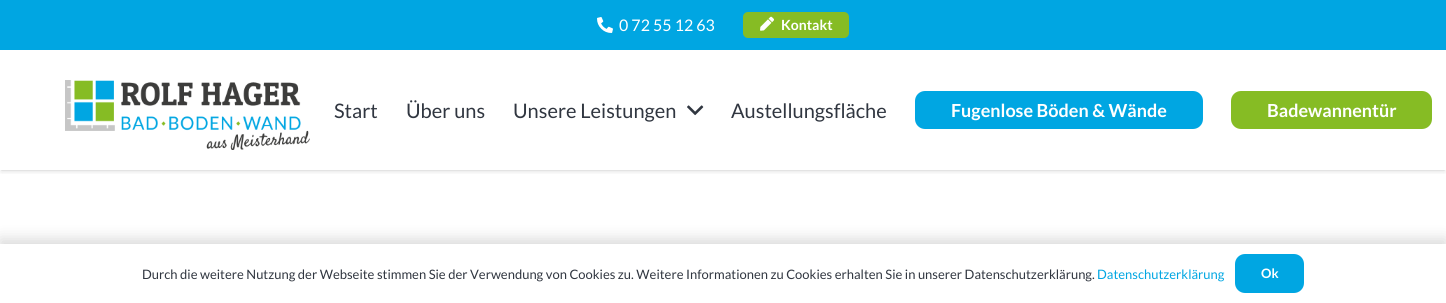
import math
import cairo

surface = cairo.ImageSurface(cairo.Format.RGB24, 1446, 303)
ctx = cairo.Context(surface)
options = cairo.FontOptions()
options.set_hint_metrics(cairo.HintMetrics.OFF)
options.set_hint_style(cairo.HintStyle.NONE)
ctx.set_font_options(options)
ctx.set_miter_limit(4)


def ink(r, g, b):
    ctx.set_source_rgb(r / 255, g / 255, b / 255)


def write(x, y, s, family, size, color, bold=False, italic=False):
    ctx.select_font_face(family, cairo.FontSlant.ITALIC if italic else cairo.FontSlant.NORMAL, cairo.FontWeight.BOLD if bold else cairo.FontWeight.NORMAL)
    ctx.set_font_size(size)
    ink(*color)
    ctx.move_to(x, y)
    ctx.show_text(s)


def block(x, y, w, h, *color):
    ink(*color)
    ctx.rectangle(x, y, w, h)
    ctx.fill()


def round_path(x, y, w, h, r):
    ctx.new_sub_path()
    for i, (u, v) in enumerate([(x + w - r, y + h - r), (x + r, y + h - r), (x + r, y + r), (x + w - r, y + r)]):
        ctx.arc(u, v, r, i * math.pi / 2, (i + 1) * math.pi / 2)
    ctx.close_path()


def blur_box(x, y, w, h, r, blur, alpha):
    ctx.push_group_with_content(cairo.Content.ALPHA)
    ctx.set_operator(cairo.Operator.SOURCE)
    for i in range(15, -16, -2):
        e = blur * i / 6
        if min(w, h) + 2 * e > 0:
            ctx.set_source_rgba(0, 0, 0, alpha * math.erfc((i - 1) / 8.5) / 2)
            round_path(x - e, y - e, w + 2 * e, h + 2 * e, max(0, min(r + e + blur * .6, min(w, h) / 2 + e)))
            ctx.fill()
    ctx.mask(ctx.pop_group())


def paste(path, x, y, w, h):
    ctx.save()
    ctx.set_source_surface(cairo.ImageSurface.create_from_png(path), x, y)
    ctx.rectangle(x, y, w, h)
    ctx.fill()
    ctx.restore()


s1 = dict(family="Lato", size=16, color=(255, 255, 255))
s2 = dict(family="Lato", size=14, color=(255, 255, 255), bold=True)
s3 = dict(family="Lato", size=20, color=(48, 54, 64))
s4 = dict(family="Lato", size=18, color=(255, 255, 255), bold=True)
s5 = dict(family="Lato", size=13, color=(48, 54, 64))
s6 = dict(family="Lato", size=13, color=(0, 166, 226))
s7 = dict(family="Lato", size=13, color=(255, 255, 255), bold=True)

ink(255, 255, 255)
ctx.paint()
block(0, 0, 1446, 50, 0, 166, 226)
paste("pic1.png", 597, 17, 16, 16)
write(619, 31, "0 72 55 12 63", **s1)
ink(134, 188, 36)
round_path(743, 12, 106, 26, 5)
ctx.fill()
paste("pic2.png", 760, 16, 14, 15)
write(781, 30, "Kontakt", **s2)
ctx.save()
ctx.rectangle(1, 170, 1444, 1)
ctx.clip()
ink(0, 0, 0)
blur_box(1, 53, 1444, 118, 0, 0.5, 0.05)
ctx.restore()
ctx.save()
ctx.rectangle(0, 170, 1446, 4)
ctx.clip()
ink(0, 0, 0)
blur_box(1, 54, 1444, 118, 0, 2.5, 0.1)
ctx.restore()
paste("pic3.png", 65, 80, 245, 70)
write(334, 118, "Start", **s3)
write(406, 118, "Über uns", **s3)
write(513, 118, "Unsere Leistungen", **s3)
paste("pic4.png", 687, 105, 17, 11)
write(731, 118, "Austellungsfläche", **s3)
ink(0, 166, 226)
round_path(915, 91, 288, 38, 10)
ctx.fill()
write(951, 117, "Fugenlose Böden & Wände", **s4)
ink(134, 188, 36)
round_path(1231, 91, 201, 38, 10)
ctx.fill()
write(1267, 117, "Badewannentür", **s4)
ink(0, 0, 0)
blur_box(0, 239, 1446, 59, 0, 7.5, 0.15)
block(0, 244, 1446, 59, 255, 255, 255)
write(142, 279, "Durch die weitere Nutzung der Webseite stimmen Sie der Verwendung von Cookies zu. Weitere Informationen zu Cookies erhalten Sie in unserer Datenschutzerklärung.", **s5)
write(1097, 279, "Datenschutzerklärung", **s6)
round_path(1235, 254, 69, 39, 10)
ctx.fill()
write(1261, 278, "Ok", **s7)
surface.write_to_png("screenshot.png")
